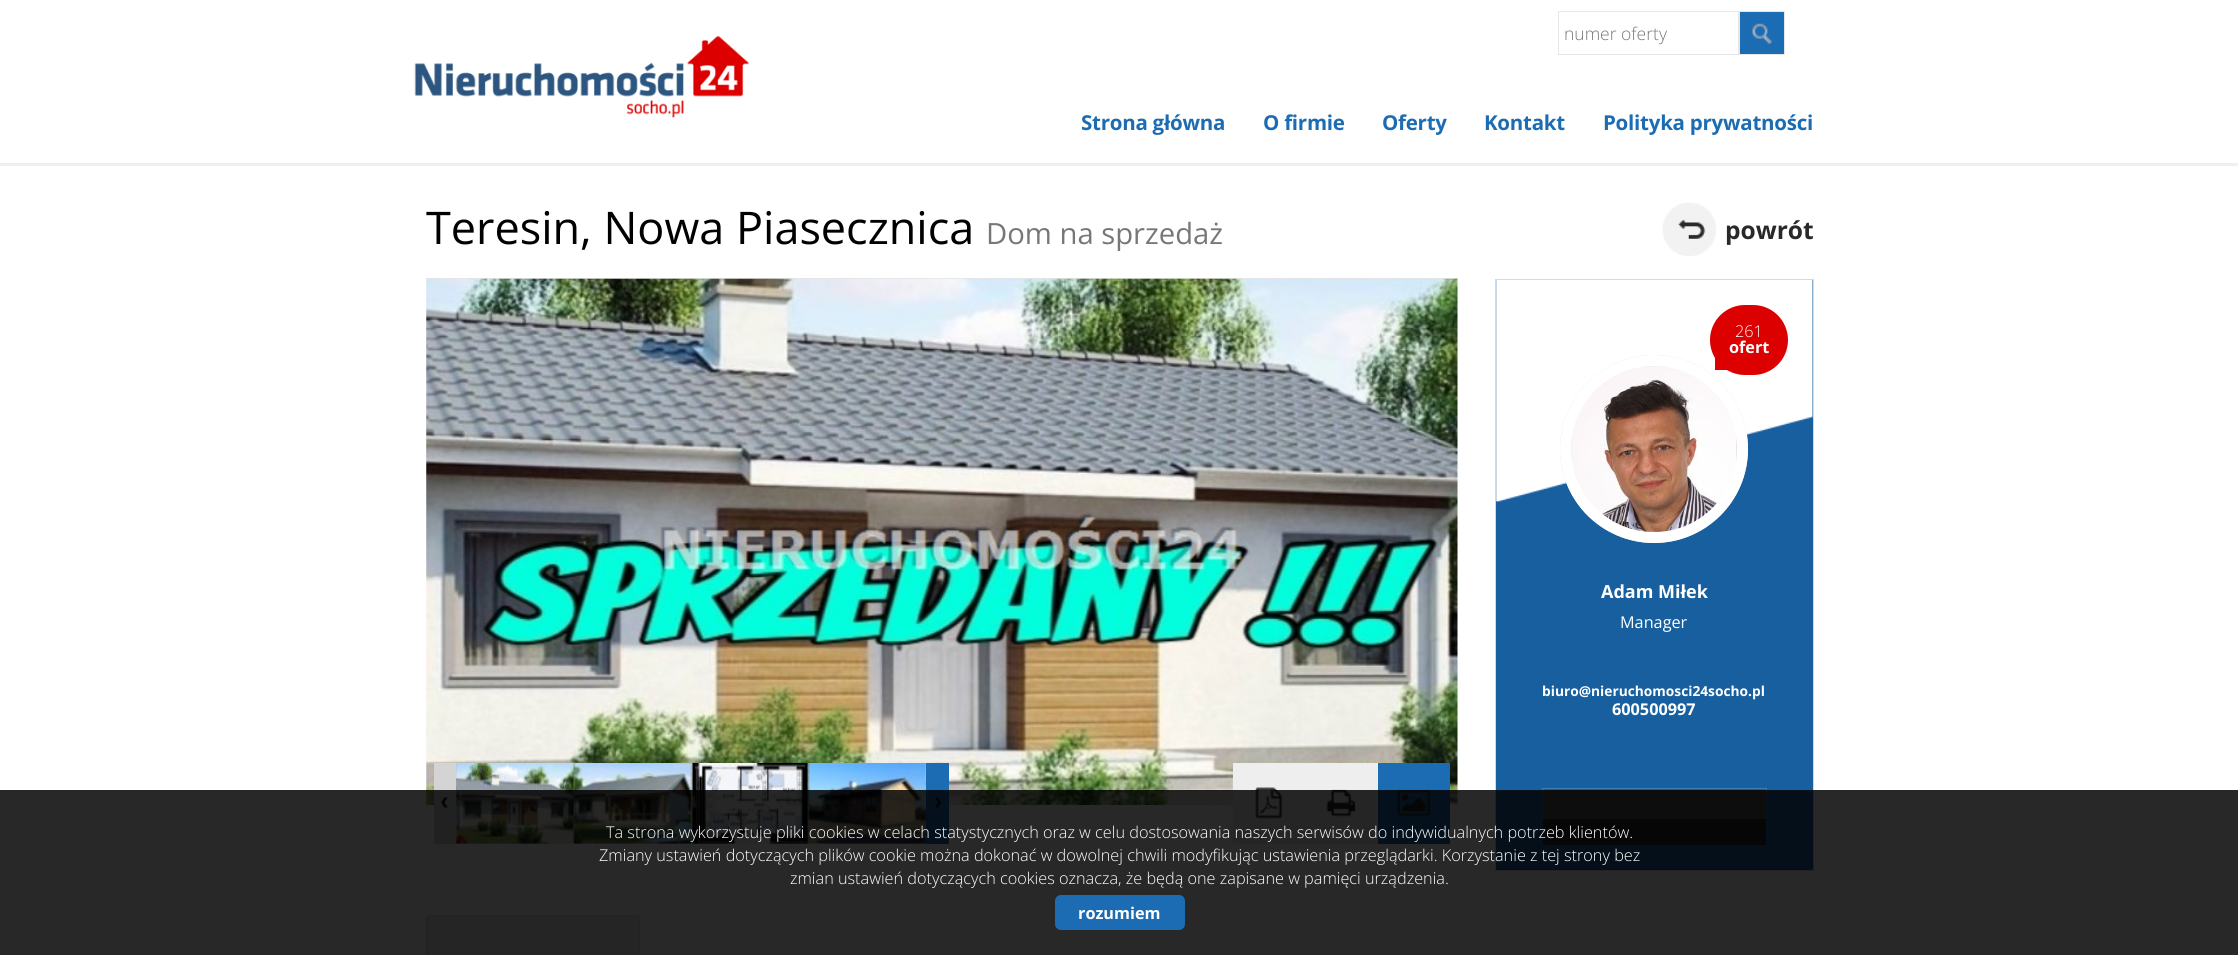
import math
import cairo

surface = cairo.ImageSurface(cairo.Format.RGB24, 2238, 955)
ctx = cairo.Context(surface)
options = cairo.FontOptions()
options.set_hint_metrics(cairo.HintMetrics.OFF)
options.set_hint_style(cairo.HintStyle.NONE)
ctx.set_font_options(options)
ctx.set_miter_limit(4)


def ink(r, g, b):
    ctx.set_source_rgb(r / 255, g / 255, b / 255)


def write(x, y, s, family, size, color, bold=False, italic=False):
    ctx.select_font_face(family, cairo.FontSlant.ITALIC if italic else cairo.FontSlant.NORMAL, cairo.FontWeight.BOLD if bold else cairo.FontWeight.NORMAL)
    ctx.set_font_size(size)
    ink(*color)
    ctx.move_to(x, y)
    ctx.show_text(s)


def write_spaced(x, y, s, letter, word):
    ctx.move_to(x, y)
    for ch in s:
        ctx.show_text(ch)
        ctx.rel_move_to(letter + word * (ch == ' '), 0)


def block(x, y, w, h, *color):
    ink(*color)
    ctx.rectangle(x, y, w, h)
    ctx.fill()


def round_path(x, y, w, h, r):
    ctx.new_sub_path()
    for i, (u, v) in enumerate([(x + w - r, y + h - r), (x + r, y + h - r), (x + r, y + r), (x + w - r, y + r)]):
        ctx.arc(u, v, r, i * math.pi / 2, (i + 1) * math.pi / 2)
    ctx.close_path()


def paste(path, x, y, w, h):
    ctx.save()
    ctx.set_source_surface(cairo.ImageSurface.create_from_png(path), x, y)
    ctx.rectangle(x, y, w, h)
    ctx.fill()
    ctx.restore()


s1 = dict(family="Open Sans Light", size=17.5, color=(119, 119, 119))
s2 = dict(family="Open Sans", size=45, color=(0, 0, 0))
s3 = dict(family="Open Sans", size=29.25, color=(119, 119, 119))
s4 = dict(family="Open Sans", size=24.5, color=(41, 41, 41), bold=True)
s5 = dict(family="Open Sans Light", size=16.25, color=(255, 255, 255))
s6 = dict(family="Open Sans", size=16.25, color=(255, 255, 255), bold=True)
s7 = dict(family="Open Sans", size=18, color=(255, 255, 255), bold=True)
s8 = dict(family="Open Sans", size=16.25, color=(255, 255, 255))
s9 = dict(family="Open Sans", size=13.75, color=(255, 255, 255), bold=True)

ink(255, 255, 255)
ctx.paint()
block(0, 163, 2238, 3, 239, 239, 239)
paste("pic1.png", 414, 35, 335, 83)
ctx.rectangle(1558.5, 11.5, 180, 43)
ink(231, 231, 231)
ctx.set_line_width(1)
ctx.stroke()
write(1564, 40, "numer oferty", **s1)
block(1740, 12, 44, 42, 28, 108, 179)
paste("pic2.png", 1752, 23, 21, 21)
ctx.rectangle(1739.5, 11.5, 45, 43)
ink(231, 231, 231)
ctx.stroke()
ctx.select_font_face("Open Sans", cairo.FontSlant.NORMAL, cairo.FontWeight.BOLD)
ctx.set_font_size(20.5)
ink(28, 108, 179)
write_spaced(1081, 130, "Strona główna", -0.25, 0)
write_spaced(1263, 130, "O firmie", -0.25, 0)
write_spaced(1382, 130, "Oferty", -0.25, 0)
write_spaced(1484, 130, "Kontakt", -0.25, 0)
write_spaced(1603, 130, "Polityka prywatności", -0.25, 0)
block(426, 278, 1032, 1, 217, 217, 217)
write(426, 244, "Teresin, Nowa Piasecznica", **s2)
write(986, 244, "Dom na sprzedaż", **s3)
paste("pic3.png", 1662, 202, 54, 54)
write(1725, 239, "powrót", **s4)
paste("pic4.png", 426, 278, 1032, 1)
paste("pic5.png", 426, 278, 1032, 527)
block(434, 763, 22, 81, 212, 212, 212)
paste("pic6.png", 441, 797, 7, 11)
block(926, 763, 23, 81, 28, 108, 179)
paste("pic7.png", 934, 797, 8, 11)
paste("pic8.png", 456, 763, 118, 81)
paste("pic9.png", 573, 763, 119, 81)
paste("pic10.png", 691, 763, 118, 81)
paste("pic11.png", 808, 763, 118, 81)
block(1233, 763, 145, 81, 238, 238, 238)
paste("pic12.png", 1255, 787, 28, 32)
block(1378, 763, 72, 81, 28, 108, 179)
paste("pic13.png", 1397, 789, 34, 28)
paste("pic14.png", 1326, 789, 30, 28)
ctx.rectangle(1495.5, 279.5, 318, 591)
ink(217, 217, 217)
ctx.stroke()
block(1496, 280, 317, 590, 23, 95, 159)
paste("pic15.png", 1496, 280, 317, 222)
ink(221, 221, 221)
ctx.arc(1654, 449, 94, 0, 2 * math.pi)
ctx.fill()
paste("pic16.png", 1571, 366, 166, 177)
ctx.arc(1654, 449, 88.5, 0, 2 * math.pi)
ink(255, 255, 255)
ctx.set_line_width(11)
ctx.stroke()
ink(220, 0, 0)
round_path(1710, 305, 78, 70, 35)
ctx.fill()
write(1735, 337, "261", **s5)
write(1729, 353, "ofert", **s6)
block(1715, 358, 12, 12, 220, 0, 0)
block(1542, 788, 225, 31, 65, 124, 176)
write(1601, 598, "Adam Miłek", **s7)
write(1620, 628, "Manager", **s8)
write(1542, 696, "biuro@nieruchomosci24socho.pl", **s9)
write(1612, 715, "600500997", **s6)
block(1543, 819, 223, 26, 41, 41, 41)
block(1543, 789, 223, 30, 80, 80, 80)
ink(238, 238, 238)
ctx.new_path()
ctx.move_to(431, 915)
ctx.line_to(635, 915)
ctx.curve_to(638, 915, 640, 917, 640, 920)
ctx.line_to(640, 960)
ctx.line_to(426, 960)
ctx.line_to(426, 920)
ctx.curve_to(426, 917, 428, 915, 431, 915)
ctx.close_path()
ctx.fill()
ink(221, 221, 221)
ctx.new_path()
ctx.move_to(431, 915)
ctx.curve_to(430, 915, 428, 915, 428, 916)
ctx.line_to(429, 917)
ctx.line_to(430, 916)
ctx.line_to(635, 916)
ctx.line_to(638, 917)
ctx.line_to(639, 916)
ctx.curve_to(638, 916, 636, 915, 635, 915)
ctx.close_path()
ctx.fill()
ctx.new_path()
ctx.move_to(640, 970)
ctx.line_to(640, 920)
ctx.curve_to(640, 918, 640, 917, 639, 916)
ctx.line_to(638, 917)
ctx.line_to(639, 919)
ctx.line_to(639, 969)
ctx.close_path()
ctx.fill()
ctx.new_path()
ctx.move_to(426, 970)
ctx.line_to(426, 918)
ctx.line_to(428, 916)
ctx.line_to(429, 917)
ctx.line_to(428, 920)
ctx.line_to(428, 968)
ctx.close_path()
ctx.fill()
ctx.set_source_rgba(0, 0, 0, 0.84)
ctx.rectangle(0, 790, 2238, 165)
ctx.fill()
write(606, 838, "Ta strona wykorzystuje pliki cookies w celach statystycznych oraz w celu dostosowania naszych serwisów do indywidualnych potrzeb klientów.", **s5)
write(599, 861, "Zmiany ustawień dotyczących plików cookie można dokonać w dowolnej chwili modyfikując ustawienia przeglądarki. Korzystanie z tej strony bez", **s5)
write(790, 884, "zmian ustawień dotyczących cookies oznacza, że będą one zapisane w pamięci urządzenia.", **s5)
ink(28, 108, 179)
round_path(1055, 895, 130, 35, 6)
ctx.fill()
write(1078, 919, "rozumiem", **s6)
surface.write_to_png("screenshot.png")
